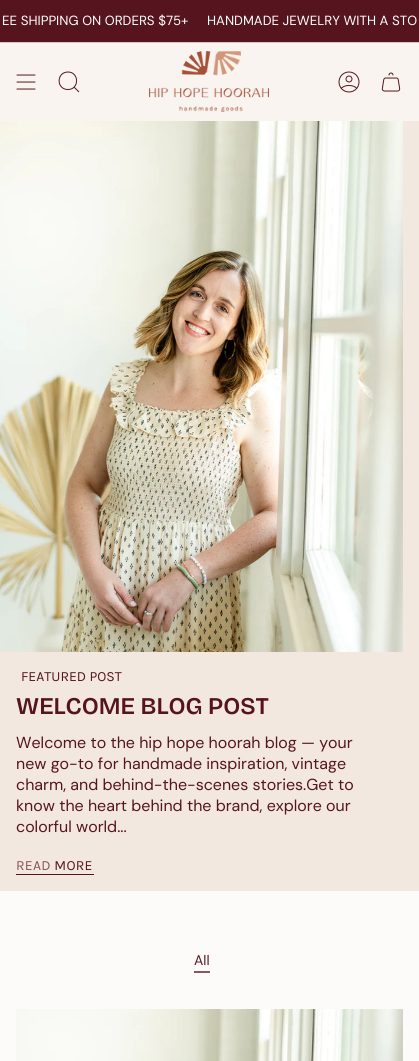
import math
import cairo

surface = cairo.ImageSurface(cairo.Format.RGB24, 419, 1061)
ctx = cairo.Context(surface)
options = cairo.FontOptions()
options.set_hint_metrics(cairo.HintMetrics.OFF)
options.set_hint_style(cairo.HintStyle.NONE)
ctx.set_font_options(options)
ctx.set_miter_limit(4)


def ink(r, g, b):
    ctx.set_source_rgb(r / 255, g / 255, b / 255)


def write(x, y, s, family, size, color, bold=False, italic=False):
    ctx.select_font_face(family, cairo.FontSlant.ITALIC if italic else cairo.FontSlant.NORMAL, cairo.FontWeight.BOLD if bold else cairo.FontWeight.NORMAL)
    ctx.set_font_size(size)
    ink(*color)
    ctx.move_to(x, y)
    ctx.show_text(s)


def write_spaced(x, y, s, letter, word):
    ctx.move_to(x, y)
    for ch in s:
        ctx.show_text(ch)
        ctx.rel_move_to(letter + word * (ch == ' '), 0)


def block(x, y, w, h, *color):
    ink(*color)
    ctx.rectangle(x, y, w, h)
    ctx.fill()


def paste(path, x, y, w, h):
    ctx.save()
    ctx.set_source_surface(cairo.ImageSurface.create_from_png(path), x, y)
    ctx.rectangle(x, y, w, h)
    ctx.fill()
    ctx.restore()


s1 = dict(family="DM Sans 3", size=13.25, color=(255, 255, 255))
s2 = dict(family="Karla", size=14, color=(86, 21, 30))
s3 = dict(family="Bricolage Grotesque SemiBold", size=24, color=(86, 21, 30))
s4 = dict(family="DM Sans", size=16, color=(86, 21, 30))
s5 = dict(family="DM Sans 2", size=14, color=(86, 21, 30))

ink(252, 251, 249)
ctx.paint()
block(0, 0, 419, 42, 86, 21, 30)
write(2, 25, "EE SHIPPING ON ORDERS $75+", **s1)
write(207, 25, "HANDMADE JEWELRY WITH A STO", **s1)
block(0, 42, 419, 1, 216, 199, 197)
block(0, 43, 419, 78, 249, 244, 239)
ctx.new_path()
ctx.move_to(17, 75)
ctx.line_to(35, 75)
ctx.move_to(17, 82)
ctx.line_to(35, 82)
ctx.move_to(17, 89)
ctx.line_to(35, 89)
ink(86, 21, 30)
ctx.set_line_width(1)
ctx.set_line_cap(cairo.LineCap.ROUND)
ctx.set_line_join(cairo.LineJoin.ROUND)
ctx.stroke()
ctx.new_path()
ctx.move_to(68, 72)
ctx.curve_to(79.5, 72, 79.5, 90, 67.5, 89.5)
ctx.curve_to(56, 89, 56.5, 72, 68, 72)
ctx.close_path()
ctx.move_to(74, 87)
ctx.line_to(79, 92)
ctx.set_line_cap(cairo.LineCap.BUTT)
ctx.set_line_join(cairo.LineJoin.MITER)
ctx.stroke()
paste("pic1.png", 149, 51, 120, 61)
paste("pic2.png", 338, 71, 22, 22)
paste("pic3.png", 381, 72, 20, 20)
block(0, 121, 419, 770, 242, 232, 223)
paste("pic4.png", 0, 121, 403, 531)
write(21, 681, "FEATURED POST", **s2)
write(16, 714, "WELCOME BLOG POST", **s3)
write(16, 748, "Welcome to the hip hope hoorah blog — your", **s4)
write(16, 769, "new go-to for handmade inspiration, vintage", **s4)
write(16, 790, "charm, and behind-the-scenes stories.Get to", **s4)
write(16, 811, "know the heart behind the brand, explore our", **s4)
write(16, 832, "colorful world...", **s4)
ctx.select_font_face("Karla")
ctx.set_font_size(14)
gradient = cairo.LinearGradient(16, 866, 94, 866)
gradient.add_color_stop_rgba(0, 0.522, 0.329, 0.345, 1)
gradient.add_color_stop_rgba(0.5, 0.522, 0.329, 0.345, 1)
gradient.add_color_stop_rgba(0.5, 0.337, 0.082, 0.118, 1)
gradient.add_color_stop_rgba(1, 0.337, 0.082, 0.118, 1)
ctx.set_source(gradient)
write_spaced(16, 870, "READ MORE", 0.25, 0)
block(16, 874, 78, 1, 86, 21, 30)
write(194, 965, "All", **s5)
block(194, 971, 16, 2, 136, 90, 96)
paste("pic5.png", 16, 1009, 387, 52)
surface.write_to_png("screenshot.png")
